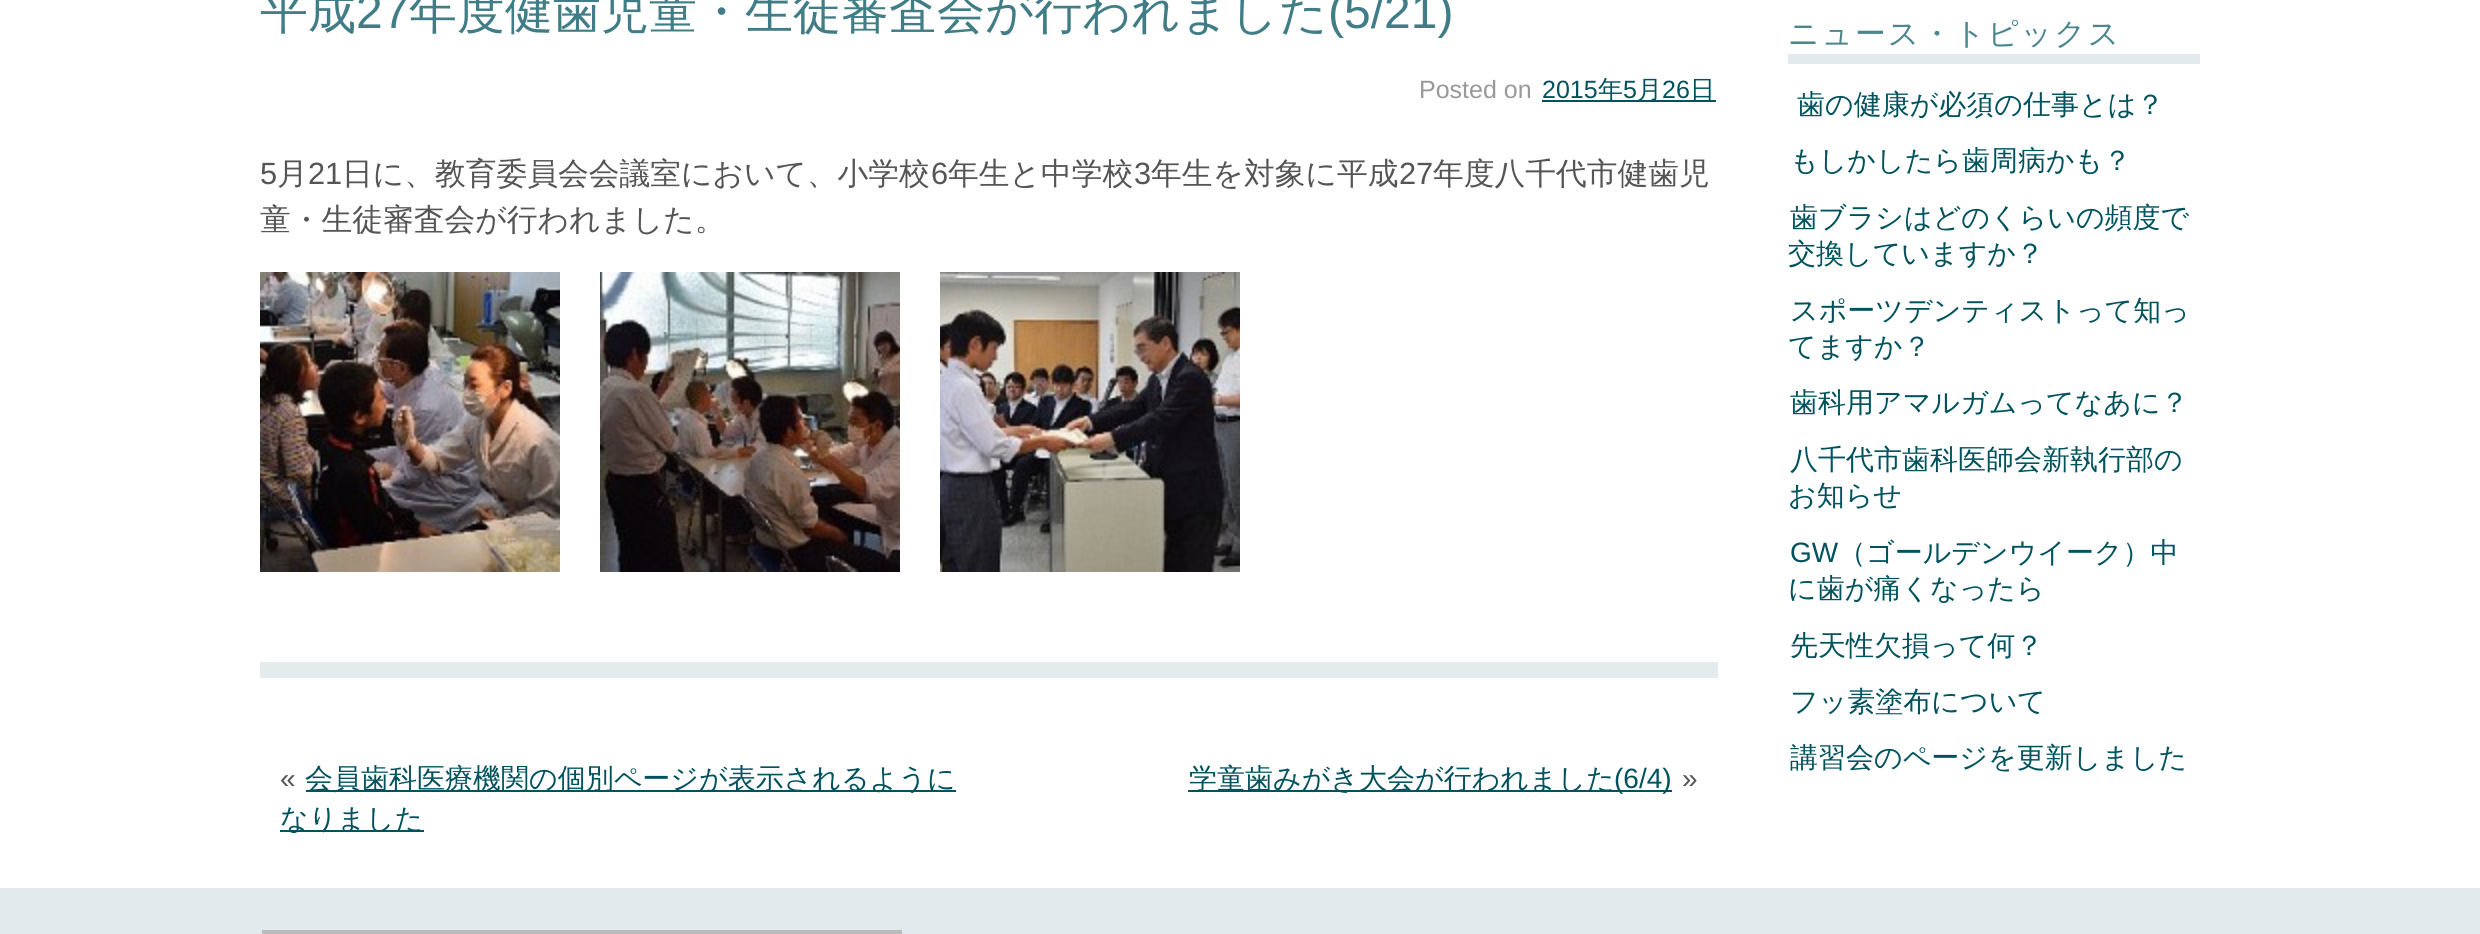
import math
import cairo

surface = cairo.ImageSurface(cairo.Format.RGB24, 2480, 934)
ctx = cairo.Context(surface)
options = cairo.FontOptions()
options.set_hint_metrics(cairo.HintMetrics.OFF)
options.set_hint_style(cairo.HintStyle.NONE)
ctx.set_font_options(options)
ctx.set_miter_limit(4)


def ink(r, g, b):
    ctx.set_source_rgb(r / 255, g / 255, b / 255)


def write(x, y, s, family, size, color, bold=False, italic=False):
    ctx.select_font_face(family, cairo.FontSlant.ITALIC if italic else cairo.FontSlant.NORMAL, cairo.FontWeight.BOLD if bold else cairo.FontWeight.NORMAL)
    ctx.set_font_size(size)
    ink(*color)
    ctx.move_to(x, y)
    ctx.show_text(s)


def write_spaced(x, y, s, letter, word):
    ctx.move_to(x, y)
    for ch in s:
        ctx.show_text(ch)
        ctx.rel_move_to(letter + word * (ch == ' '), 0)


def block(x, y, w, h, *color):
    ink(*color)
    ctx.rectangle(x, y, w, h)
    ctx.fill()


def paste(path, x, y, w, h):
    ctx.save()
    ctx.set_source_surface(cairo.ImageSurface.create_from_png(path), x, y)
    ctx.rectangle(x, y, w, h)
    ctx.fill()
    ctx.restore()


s1 = dict(family="WenQuanYi Zen Hei Medium", size=48, color=(65, 125, 134))
s2 = dict(family="Liberation Sans", size=48, color=(65, 125, 134))
s3 = dict(family="Liberation Sans", size=25, color=(153, 153, 153))
s4 = dict(family="Liberation Sans", size=25, color=(0, 82, 93))
s5 = dict(family="WenQuanYi Zen Hei Medium", size=25, color=(0, 82, 93))
s6 = dict(family="Liberation Sans", size=30.75, color=(85, 85, 85))
s7 = dict(family="WenQuanYi Zen Hei Medium", size=30.75, color=(85, 85, 85))
s8 = dict(family="Liberation Sans", size=28, color=(85, 85, 85))
s9 = dict(family="WenQuanYi Zen Hei Medium", size=28, color=(0, 82, 93))
s10 = dict(family="Liberation Sans", size=28, color=(0, 82, 93))

ink(255, 255, 255)
ctx.paint()
block(260, 662, 1458, 16, 227, 235, 237)
write(260, 28, "平成", **s1)
write(356, 28, "27", **s2)
write(409, 28, "年度健歯児童・生徒審査会が行われました", **s1)
write(1328, 28, "(5/21)", **s2)
write(1419, 98, "Posted on", **s3)
write(1542, 98, "2015", **s4)
block(1542, 100, 174, 2, 0, 82, 93)
write(1598, 98, "年", **s5)
write(1623, 98, "5", **s4)
write(1637, 98, "月", **s5)
write(1662, 98, "26", **s4)
write(1690, 98, "日", **s5)
write(260, 184, "5", **s6)
write(277, 184, "月", **s7)
write(308, 184, "21", **s6)
write(342, 184, "日に、教育委員会会議室において、小学校", **s7)
write(931, 184, "6", **s6)
write(948, 184, "年生と中学校", **s7)
write(1134, 184, "3", **s6)
write(1151, 184, "年生を対象に平成", **s7)
write(1399, 184, "27", **s6)
write(1433, 184, "年度八千代市健歯児", **s7)
write(260, 230, "童・生徒審査会が行われました。", **s7)
paste("pic1.png", 260, 272, 300, 300)
paste("pic2.png", 600, 272, 300, 300)
paste("pic3.png", 940, 272, 300, 300)
write(280, 788, "«", **s8)
block(306, 790, 650, 2, 0, 82, 93)
write(305, 788, "会員歯科医療機関の個別ページが表示されるように", **s9)
block(280, 830, 144, 2, 0, 82, 93)
write(280, 828, "なりました", **s9)
block(1188, 790, 484, 2, 0, 82, 93)
write(1189, 788, "学童歯みがき大会が行われました", **s9)
write(1614, 788, "(6/4)", **s10)
write(1682, 788, "»", **s8)
block(1788, 54, 412, 10, 226, 234, 237)
ctx.select_font_face("WenQuanYi Zen Hei Medium")
ctx.set_font_size(30.75)
ink(77, 133, 142)
write_spaced(1788, 44, "ニュース・トピックス", 2, 0)
write(1797, 114, "歯の健康が必須の仕事とは？", **s9)
write(1790, 170, "もしかしたら歯周病かも？", **s9)
write(1790, 227, "歯ブラシはどのくらいの頻度で", **s9)
write(1788, 263, "交換していますか？", **s9)
write(1790, 320, "スポーツデンティストって知っ", **s9)
write(1788, 356, "てますか？", **s9)
write(1790, 412, "歯科用アマルガムってなあに？", **s9)
write(1790, 469, "八千代市歯科医師会新執行部の", **s9)
write(1788, 505, "お知らせ", **s9)
write(1790, 562, "GW", **s10)
write(1838, 562, "（ゴールデンウイーク）中", **s9)
write(1788, 598, "に歯が痛くなったら", **s9)
write(1790, 655, "先天性欠損って何？", **s9)
write(1790, 711, "フッ素塗布について", **s9)
write(1790, 767, "講習会のページを更新しました", **s9)
block(0, 888, 2480, 46, 226, 234, 237)
ctx.rectangle(272, 940, 620, 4)
ink(187, 187, 187)
ctx.set_line_width(20)
ctx.stroke()
surface.write_to_png("screenshot.png")
